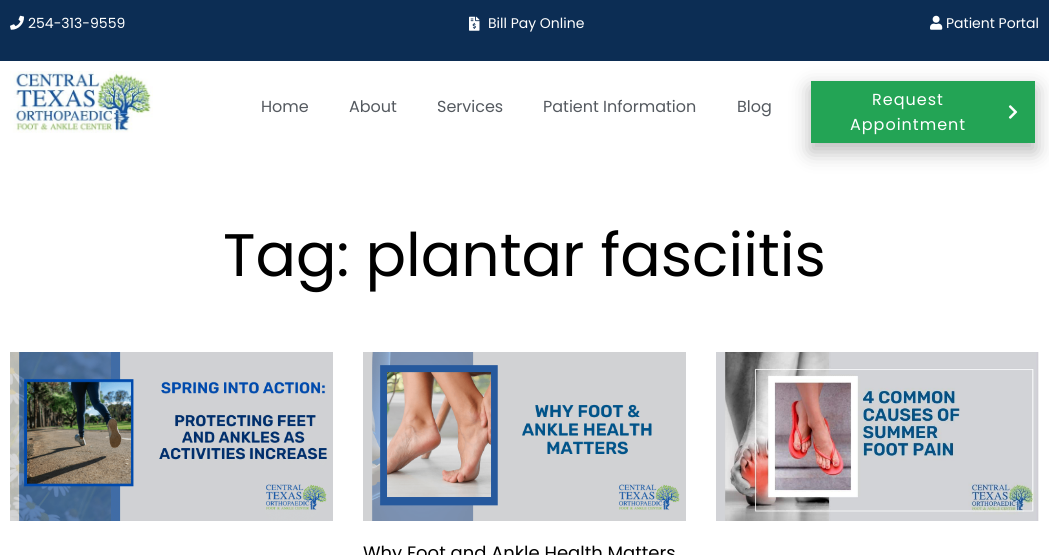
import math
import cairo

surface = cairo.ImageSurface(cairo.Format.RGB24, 1049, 555)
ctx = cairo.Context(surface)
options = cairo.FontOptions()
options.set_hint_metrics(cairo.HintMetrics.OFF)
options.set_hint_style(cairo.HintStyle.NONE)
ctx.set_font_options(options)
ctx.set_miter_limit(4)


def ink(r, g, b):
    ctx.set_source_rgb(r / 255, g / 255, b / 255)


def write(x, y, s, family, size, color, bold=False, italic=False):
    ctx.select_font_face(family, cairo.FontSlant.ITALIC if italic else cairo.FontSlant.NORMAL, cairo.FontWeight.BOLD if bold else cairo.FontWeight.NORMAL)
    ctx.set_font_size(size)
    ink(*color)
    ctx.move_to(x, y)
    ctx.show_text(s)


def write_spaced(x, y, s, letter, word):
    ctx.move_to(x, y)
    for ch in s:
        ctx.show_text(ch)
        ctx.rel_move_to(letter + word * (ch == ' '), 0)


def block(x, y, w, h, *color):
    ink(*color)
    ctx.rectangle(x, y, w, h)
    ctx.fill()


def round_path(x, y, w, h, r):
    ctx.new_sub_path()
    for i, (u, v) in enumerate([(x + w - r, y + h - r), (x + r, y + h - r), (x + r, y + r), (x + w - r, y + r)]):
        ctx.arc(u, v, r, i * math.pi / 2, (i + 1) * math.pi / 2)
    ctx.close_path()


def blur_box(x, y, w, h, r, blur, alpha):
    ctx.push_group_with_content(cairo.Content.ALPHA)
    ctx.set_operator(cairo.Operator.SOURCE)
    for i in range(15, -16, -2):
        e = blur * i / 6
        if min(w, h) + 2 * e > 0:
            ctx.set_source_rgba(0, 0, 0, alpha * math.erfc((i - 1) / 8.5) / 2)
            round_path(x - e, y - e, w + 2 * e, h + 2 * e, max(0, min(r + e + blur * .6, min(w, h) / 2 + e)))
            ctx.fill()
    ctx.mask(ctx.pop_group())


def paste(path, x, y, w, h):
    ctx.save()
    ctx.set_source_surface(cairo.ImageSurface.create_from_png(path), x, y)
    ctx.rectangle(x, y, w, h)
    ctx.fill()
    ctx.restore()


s1 = dict(family="Poppins", size=14, color=(255, 255, 255))
s2 = dict(family="Poppins", size=16, color=(84, 89, 95))
s3 = dict(family="Poppins", size=60, color=(0, 0, 0))
s4 = dict(family="Poppins", size=18, color=(0, 0, 0))

ink(255, 255, 255)
ctx.paint()
block(0, 0, 1049, 61, 12, 45, 84)
paste("pic1.png", 10, 15, 14, 15)
write(28, 28, "254-313-9559", **s1)
paste("pic2.png", 469, 16, 11, 15)
write(488, 28, "Bill Pay Online", **s1)
paste("pic3.png", 930, 15, 13, 15)
write(946, 28, "Patient Portal", **s1)
paste("pic4.png", 10, 71, 143, 62)
write(261, 112, "Home", **s2)
write(349, 112, "About", **s2)
write(437, 112, "Services", **s2)
write(543, 112, "Patient Information", **s2)
write(737, 112, "Blog", **s2)
ink(0, 0, 0)
blur_box(810, 88, 226, 64, 0, 10, 0.27)
block(811, 81, 224, 62, 35, 164, 85)
ink(255, 255, 255)
write_spaced(872, 105, "Request", 1, 0)
paste("pic5.png", 1008, 105, 10, 14)
write_spaced(850, 130, "Appointment", 1, 0)
write(223, 276, "Tag: plantar fasciitis", **s3)
paste("pic6.png", 10, 352, 323, 169)
paste("pic7.png", 716, 352, 323, 169)
paste("pic8.png", 363, 352, 323, 169)
write(363, 559, "Why Foot and Ankle Health Matters", **s4)
surface.write_to_png("screenshot.png")
